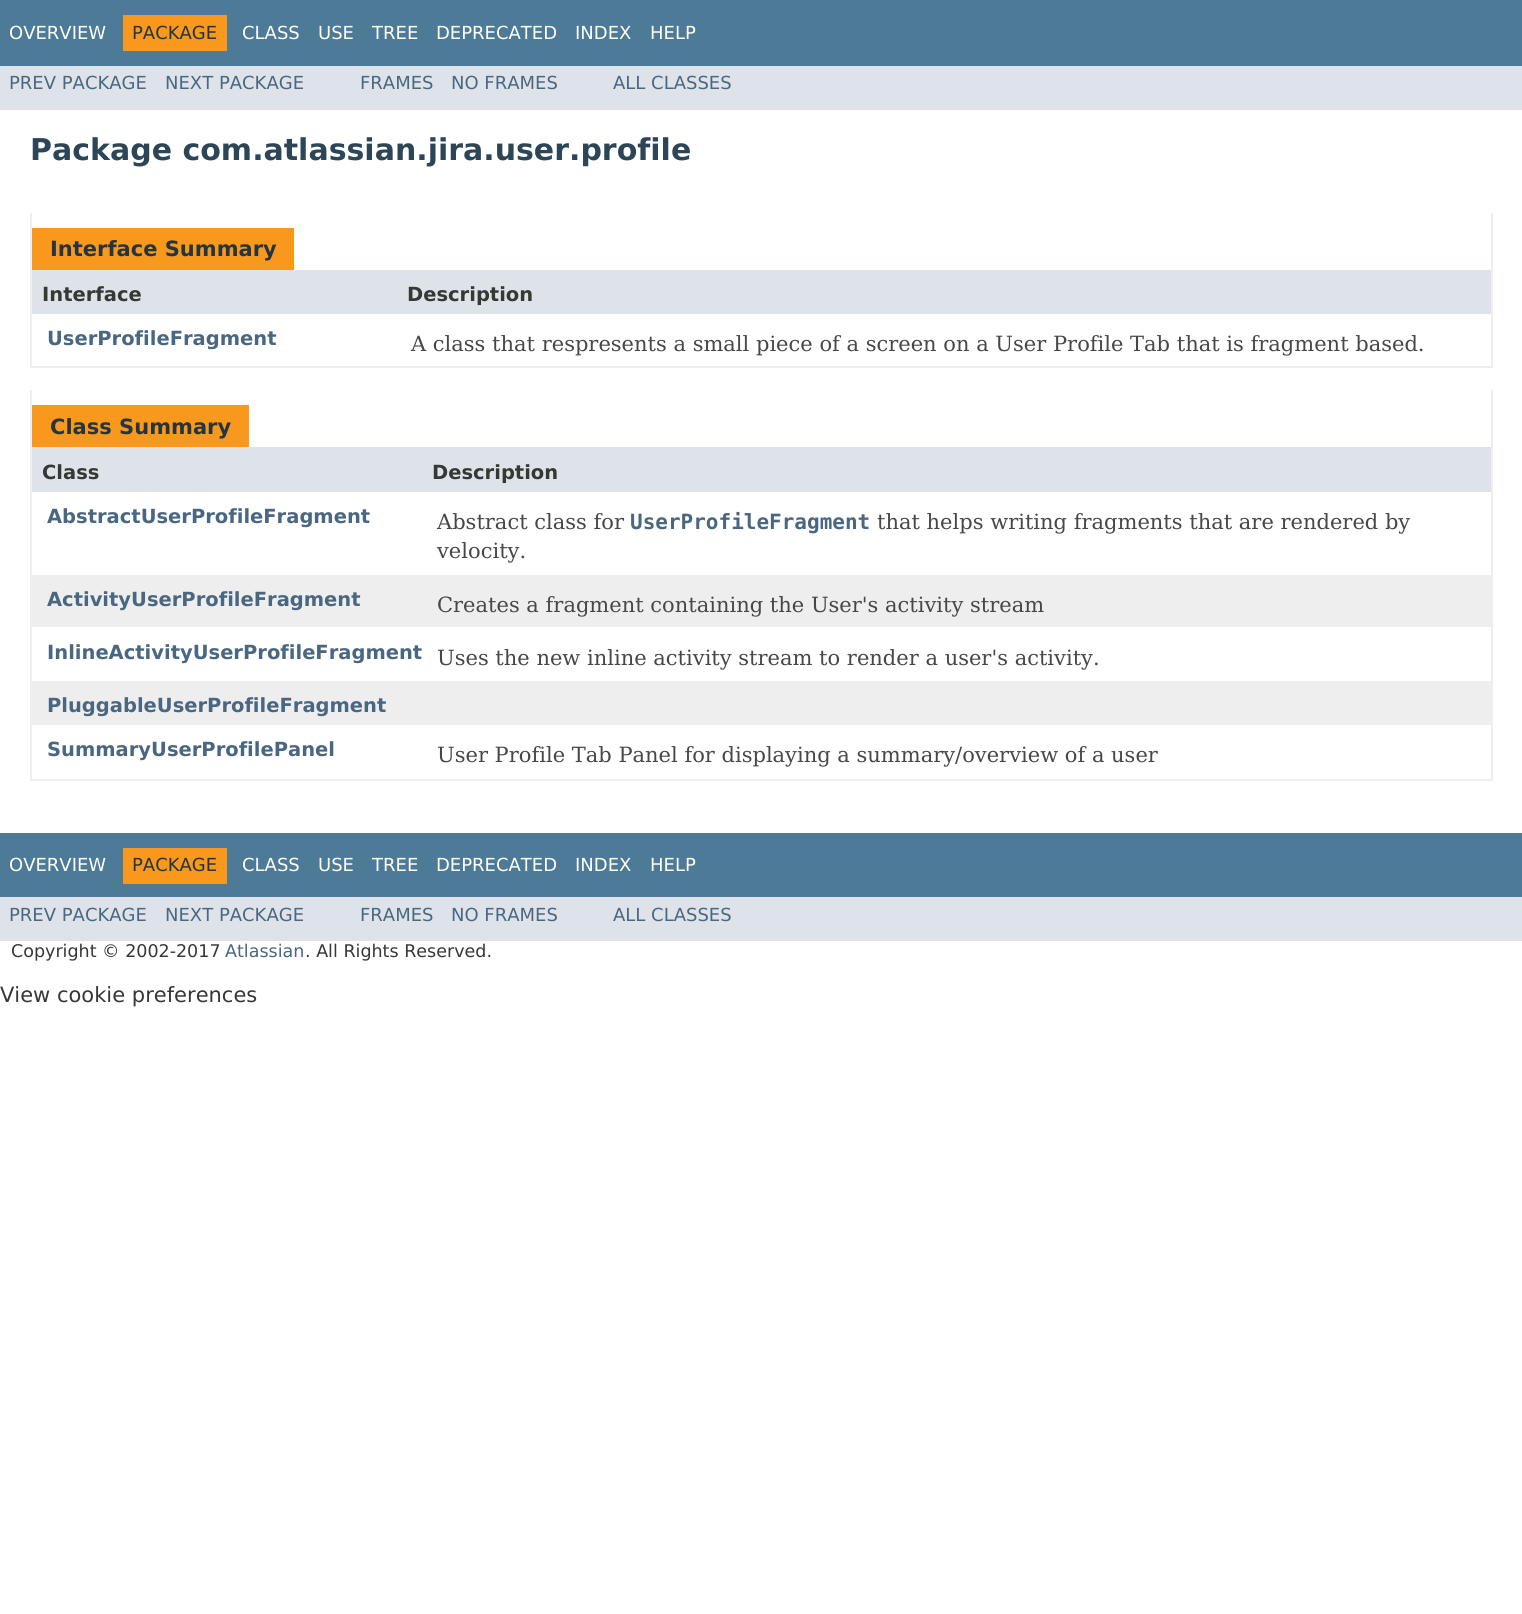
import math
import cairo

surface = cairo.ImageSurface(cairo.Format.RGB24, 1522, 1614)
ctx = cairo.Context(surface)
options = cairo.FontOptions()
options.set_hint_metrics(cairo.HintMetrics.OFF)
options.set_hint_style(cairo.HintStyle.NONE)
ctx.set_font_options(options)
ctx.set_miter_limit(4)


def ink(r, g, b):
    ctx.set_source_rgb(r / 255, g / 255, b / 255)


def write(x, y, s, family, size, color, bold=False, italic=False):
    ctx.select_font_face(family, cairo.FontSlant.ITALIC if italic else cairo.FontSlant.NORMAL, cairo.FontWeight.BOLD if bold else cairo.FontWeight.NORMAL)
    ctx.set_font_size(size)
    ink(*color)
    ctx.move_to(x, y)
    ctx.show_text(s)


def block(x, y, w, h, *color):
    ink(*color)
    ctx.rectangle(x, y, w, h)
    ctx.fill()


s1 = dict(family="DejaVu Sans", size=18, color=(255, 255, 255))
s2 = dict(family="DejaVu Sans", size=18, color=(37, 52, 65))
s3 = dict(family="DejaVu Sans", size=18, color=(74, 103, 130))
s4 = dict(family="DejaVu Sans", size=30, color=(44, 69, 87), bold=True)
s5 = dict(family="DejaVu Sans", size=21, color=(37, 52, 65), bold=True)
s6 = dict(family="DejaVu Sans", size=19.5, color=(53, 56, 51), bold=True)
s7 = dict(family="DejaVu Sans", size=19.5, color=(74, 103, 130), bold=True)
s8 = dict(family="DejaVu Serif", size=21, color=(71, 71, 71))
s9 = dict(family="DejaVu Sans Mono", size=21, color=(74, 103, 130), bold=True)
s10 = dict(family="DejaVu Sans", size=17.5, color=(53, 56, 51))
s11 = dict(family="DejaVu Sans", size=17.5, color=(74, 103, 130))
s12 = dict(family="DejaVu Sans", size=21, color=(53, 56, 51))

ink(255, 255, 255)
ctx.paint()
block(0, 0, 1522, 66, 77, 122, 151)
write(9, 39, "OVERVIEW", **s1)
block(123, 15, 104, 36, 248, 152, 29)
write(132, 39, "PACKAGE", **s2)
write(242, 39, "CLASS", **s1)
write(318, 39, "USE", **s1)
write(372, 39, "TREE", **s1)
write(436, 39, "DEPRECATED", **s1)
write(575, 39, "INDEX", **s1)
write(650, 39, "HELP", **s1)
block(0, 66, 1522, 44, 222, 227, 233)
write(9, 89, "PREV PACKAGE", **s3)
write(165, 89, "NEXT PACKAGE", **s3)
write(360, 89, "FRAMES", **s3)
write(451, 89, "NO FRAMES", **s3)
write(613, 89, "ALL CLASSES", **s3)
write(30, 160, "Package com.atlassian.jira.user.profile", **s4)
block(1491, 213, 2, 155, 238, 238, 238)
block(30, 366, 1463, 2, 238, 238, 238)
block(30, 213, 2, 155, 238, 238, 238)
block(32, 228, 262, 42, 248, 152, 29)
write(50, 256, "Interface Summary", **s5)
block(32, 270, 1459, 44, 222, 227, 233)
write(42, 301, "Interface", **s6)
write(407, 301, "Description", **s6)
write(47, 345, "UserProfileFragment", **s7)
write(411, 351, "A class that respresents a small piece of a screen on a User Profile Tab that is fragment based.", **s8)
block(1491, 390, 2, 390, 238, 238, 238)
block(30, 779, 1463, 2, 238, 238, 238)
block(30, 390, 2, 390, 238, 238, 238)
block(32, 405, 217, 42, 248, 152, 29)
write(50, 434, "Class Summary", **s5)
block(32, 447, 1459, 45, 222, 227, 233)
write(42, 479, "Class", **s6)
write(432, 479, "Description", **s6)
write(47, 523, "AbstractUserProfileFragment", **s7)
write(437, 529, "Abstract class for", **s8)
write(630, 529, "UserProfileFragment", **s9)
write(877, 529, "that helps writing fragments that are rendered by", **s8)
write(437, 558, "velocity.", **s8)
block(32, 575, 1459, 52, 238, 238, 239)
write(47, 606, "ActivityUserProfileFragment", **s7)
write(437, 612, "Creates a fragment containing the User's activity stream", **s8)
write(47, 659, "InlineActivityUserProfileFragment", **s7)
write(437, 665, "Uses the new inline activity stream to render a user's activity.", **s8)
block(32, 681, 1459, 44, 238, 238, 239)
write(47, 712, "PluggableUserProfileFragment", **s7)
write(47, 756, "SummaryUserProfilePanel", **s7)
write(437, 762, "User Profile Tab Panel for displaying a summary/overview of a user", **s8)
block(0, 833, 1522, 64, 77, 122, 151)
write(9, 871, "OVERVIEW", **s1)
block(123, 848, 104, 36, 248, 152, 29)
write(132, 871, "PACKAGE", **s2)
write(242, 871, "CLASS", **s1)
write(318, 871, "USE", **s1)
write(372, 871, "TREE", **s1)
write(436, 871, "DEPRECATED", **s1)
write(575, 871, "INDEX", **s1)
write(650, 871, "HELP", **s1)
block(0, 897, 1522, 44, 222, 227, 233)
write(9, 921, "PREV PACKAGE", **s3)
write(165, 921, "NEXT PACKAGE", **s3)
write(360, 921, "FRAMES", **s3)
write(451, 921, "NO FRAMES", **s3)
write(613, 921, "ALL CLASSES", **s3)
write(11, 957, "Copyright © 2002-2017", **s10)
write(225, 957, "Atlassian", **s11)
write(305, 957, ". All Rights Reserved.", **s10)
write(0, 1002, "View cookie preferences", **s12)
surface.write_to_png("screenshot.png")
